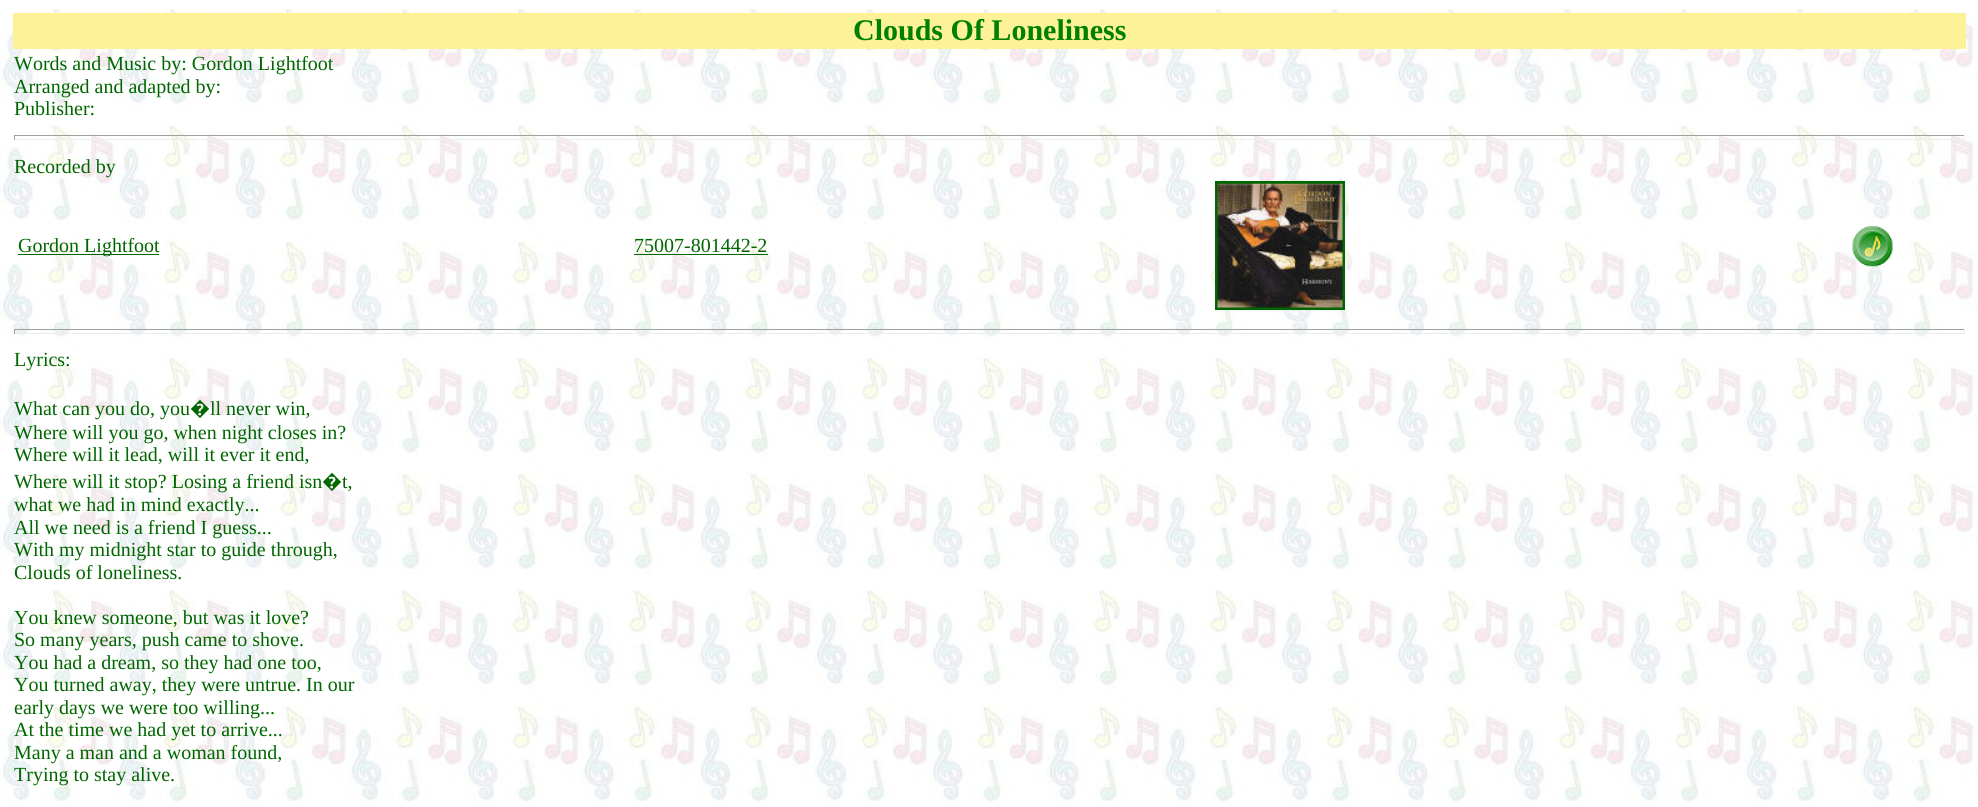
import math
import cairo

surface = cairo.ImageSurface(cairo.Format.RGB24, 1978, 807)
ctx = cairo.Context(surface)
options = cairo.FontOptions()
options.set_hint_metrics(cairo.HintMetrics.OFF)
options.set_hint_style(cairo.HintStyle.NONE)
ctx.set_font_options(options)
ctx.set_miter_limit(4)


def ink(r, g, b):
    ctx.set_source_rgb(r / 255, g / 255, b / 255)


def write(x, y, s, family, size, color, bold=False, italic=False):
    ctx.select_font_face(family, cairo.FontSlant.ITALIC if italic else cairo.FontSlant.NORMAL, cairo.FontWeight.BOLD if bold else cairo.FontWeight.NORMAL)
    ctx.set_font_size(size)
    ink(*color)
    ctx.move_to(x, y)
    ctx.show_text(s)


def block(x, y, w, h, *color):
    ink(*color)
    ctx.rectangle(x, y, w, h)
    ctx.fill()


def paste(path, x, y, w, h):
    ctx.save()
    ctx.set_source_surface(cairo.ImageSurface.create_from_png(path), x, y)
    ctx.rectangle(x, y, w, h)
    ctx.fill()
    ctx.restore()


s1 = dict(family="Liberation Serif", size=30, color=(0, 128, 0), bold=True)
s2 = dict(family="Liberation Serif", size=20, color=(0, 102, 0))
s3 = dict(family="Noto Sans", size=20, color=(0, 102, 0))

ink(255, 255, 255)
ctx.paint()
paste("pic1.png", 0, 8, 1978, 794)
block(13, 13, 1953, 36, 253, 242, 151)
write(853, 40, "Clouds Of Loneliness", **s1)
write(14, 70, "Words and Music by: Gordon Lightfoot", **s2)
write(14, 93, "Arranged and adapted by:", **s2)
write(14, 115, "Publisher:", **s2)
block(14, 135, 1951, 1, 159, 159, 159)
block(1964, 135, 1, 5, 238, 238, 238)
block(14, 139, 1951, 1, 238, 238, 238)
block(14, 135, 1, 5, 159, 159, 159)
write(14, 173, "Recorded by", **s2)
block(18, 254, 141, 1, 0, 102, 0)
write(18, 252, "Gordon Lightfoot", **s2)
write(634, 252, "75007-801442-2", **s2)
block(634, 254, 134, 1, 0, 102, 0)
ctx.rectangle(1216.5, 182.5, 127, 126)
ctx.set_line_width(3)
ctx.stroke()
paste("pic2.png", 1217, 183, 126, 125)
paste("pic3.png", 1852, 226, 41, 41)
block(14, 329, 1951, 1, 159, 159, 159)
block(1964, 329, 1, 5, 238, 238, 238)
block(14, 333, 1951, 1, 238, 238, 238)
block(14, 329, 1, 5, 159, 159, 159)
write(14, 366, "Lyrics:", **s2)
write(14, 415, "What can you do, you", **s2)
write(190, 415, "�", **s3)
write(210, 415, "ll never win,", **s2)
write(14, 439, "Where will you go, when night closes in?", **s2)
write(14, 461, "Where will it lead, will it ever it end,", **s2)
write(14, 488, "Where will it stop? Losing a friend isn", **s2)
write(322, 488, "�", **s3)
write(342, 488, "t,", **s2)
write(14, 511, "what we had in mind exactly...", **s2)
write(14, 534, "All we need is a friend I guess...", **s2)
write(14, 556, "With my midnight star to guide through,", **s2)
write(14, 579, "Clouds of loneliness.", **s2)
write(14, 624, "You knew someone, but was it love?", **s2)
write(14, 646, "So many years, push came to shove.", **s2)
write(14, 669, "You had a dream, so they had one too,", **s2)
write(14, 691, "You turned away, they were untrue. In our", **s2)
write(14, 714, "early days we were too willing...", **s2)
write(14, 736, "At the time we had yet to arrive...", **s2)
write(14, 759, "Many a man and a woman found,", **s2)
write(14, 781, "Trying to stay alive.", **s2)
surface.write_to_png("screenshot.png")
